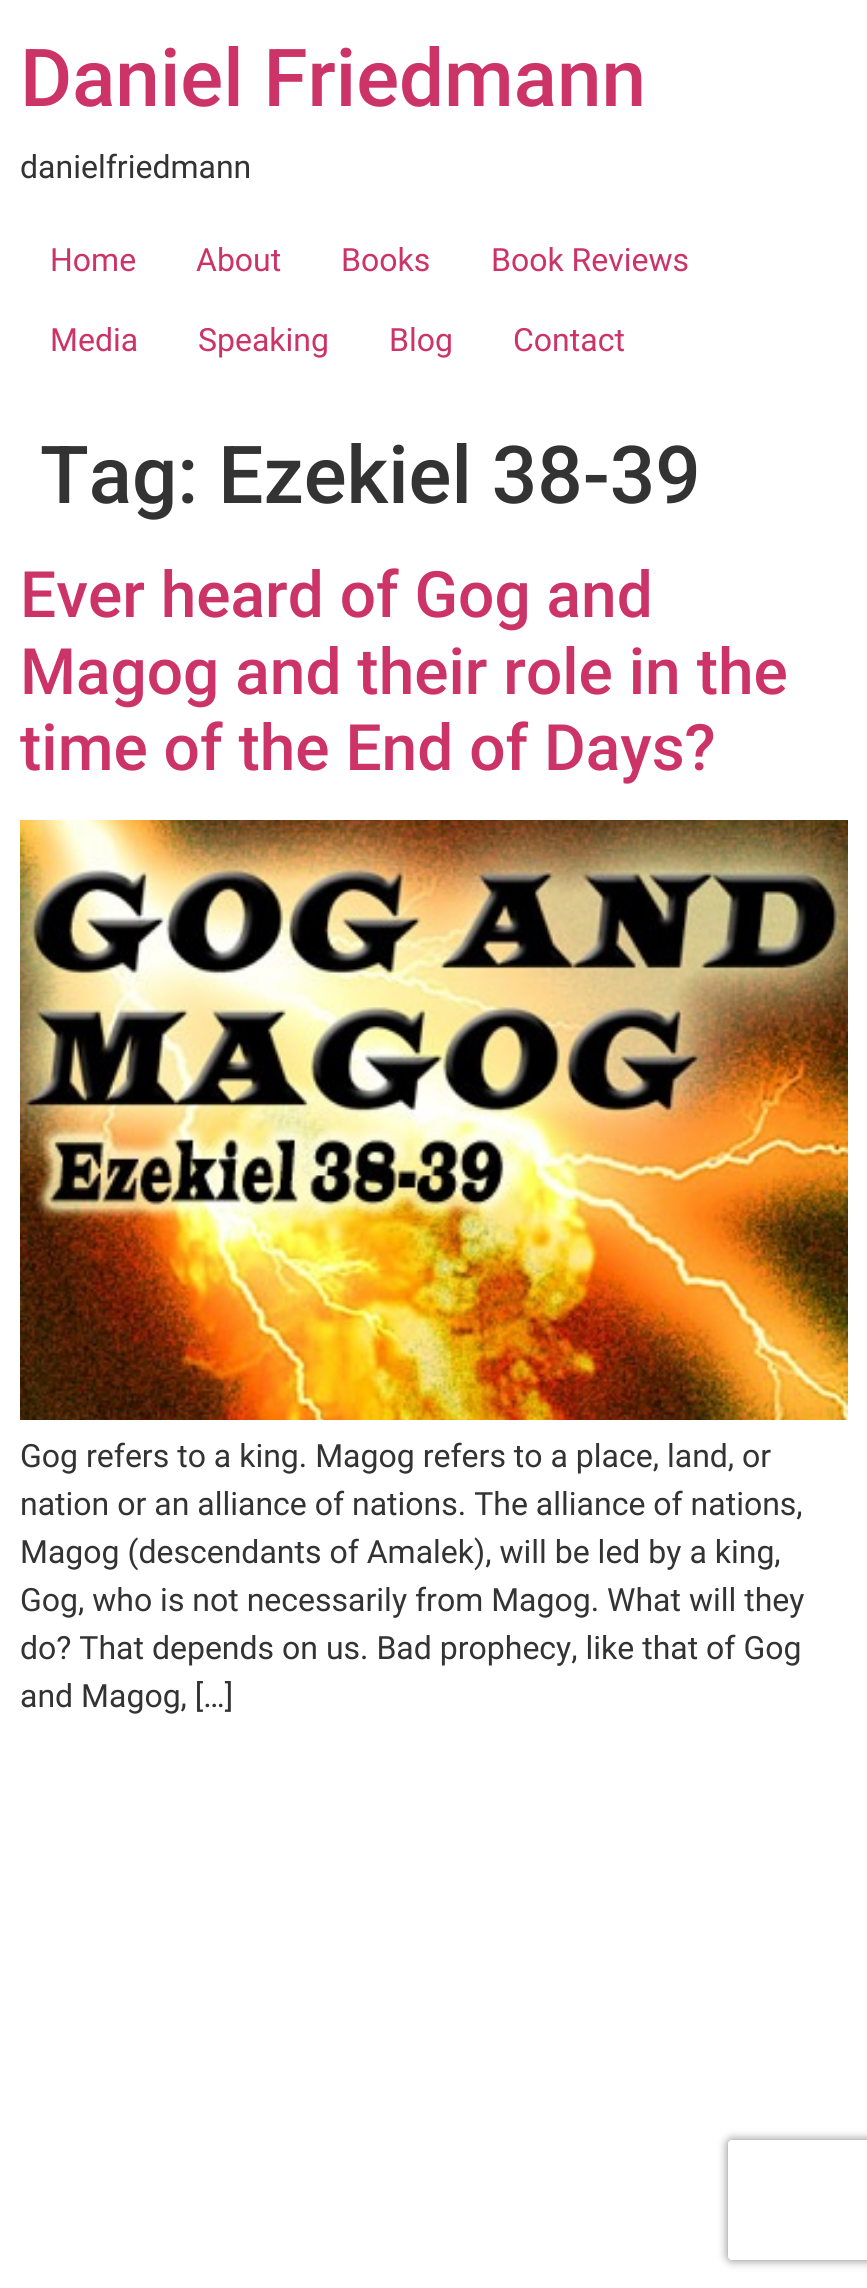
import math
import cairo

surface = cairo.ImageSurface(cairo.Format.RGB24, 867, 2288)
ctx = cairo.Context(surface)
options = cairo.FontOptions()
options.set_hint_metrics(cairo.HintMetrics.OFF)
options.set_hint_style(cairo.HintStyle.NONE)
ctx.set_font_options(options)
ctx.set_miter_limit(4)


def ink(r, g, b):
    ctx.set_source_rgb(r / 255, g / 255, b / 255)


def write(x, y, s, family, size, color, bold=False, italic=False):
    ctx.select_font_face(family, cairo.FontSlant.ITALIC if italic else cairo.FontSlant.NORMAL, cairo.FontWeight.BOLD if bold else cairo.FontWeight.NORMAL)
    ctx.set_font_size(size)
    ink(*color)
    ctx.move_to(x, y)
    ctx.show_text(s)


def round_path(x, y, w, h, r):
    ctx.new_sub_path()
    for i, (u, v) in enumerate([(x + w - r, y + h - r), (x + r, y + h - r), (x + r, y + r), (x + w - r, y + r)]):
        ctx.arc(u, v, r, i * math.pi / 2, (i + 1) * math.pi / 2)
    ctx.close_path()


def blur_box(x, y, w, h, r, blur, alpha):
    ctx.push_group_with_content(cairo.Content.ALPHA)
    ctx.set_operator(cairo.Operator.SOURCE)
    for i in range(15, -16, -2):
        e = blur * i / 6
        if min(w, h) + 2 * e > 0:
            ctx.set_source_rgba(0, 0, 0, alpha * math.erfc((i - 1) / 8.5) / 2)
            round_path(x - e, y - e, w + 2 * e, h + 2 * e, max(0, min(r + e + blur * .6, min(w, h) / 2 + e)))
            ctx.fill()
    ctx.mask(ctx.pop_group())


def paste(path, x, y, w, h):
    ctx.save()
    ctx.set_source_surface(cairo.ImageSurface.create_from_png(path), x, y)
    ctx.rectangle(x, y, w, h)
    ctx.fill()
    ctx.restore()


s1 = dict(family="Roboto Medium", size=80, color=(204, 51, 102))
s2 = dict(family="Roboto", size=32, color=(51, 51, 51))
s3 = dict(family="Roboto", size=32, color=(204, 51, 102))
s4 = dict(family="Roboto Medium", size=80, color=(51, 51, 51))
s5 = dict(family="Roboto Medium", size=64, color=(204, 51, 102))

ink(255, 255, 255)
ctx.paint()
write(20, 106, "Daniel Friedmann", **s1)
write(20, 178, "danielfriedmann", **s2)
write(50, 271, "Home", **s3)
write(196, 271, "About", **s3)
write(341, 271, "Books", **s3)
write(491, 271, "Book Reviews", **s3)
write(50, 351, "Media", **s3)
write(198, 351, "Speaking", **s3)
write(389, 351, "Blog", **s3)
write(513, 351, "Contact", **s3)
write(40, 503, "Tag: Ezekiel 38-39", **s4)
write(20, 617, "Ever heard of Gog and", **s5)
write(20, 694, "Magog and their role in the", **s5)
write(20, 770, "time of the End of Days?", **s5)
paste("pic1.png", 20, 820, 828, 600)
write(20, 1467, "Gog refers to a king. Magog refers to a place, land, or", **s2)
write(20, 1515, "nation or an alliance of nations. The alliance of nations,", **s2)
write(20, 1563, "Magog (descendants of Amalek), will be led by a king,", **s2)
write(20, 1611, "Gog, who is not necessarily from Magog. What will they", **s2)
write(20, 1659, "do? That depends on us. Bad prophecy, like that of Gog", **s2)
write(20, 1707, "and Magog, […]", **s2)
ctx.save()
ctx.set_fill_rule(cairo.FillRule.EVEN_ODD)
ctx.new_path()
ctx.move_to(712, 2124)
ctx.line_to(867, 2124)
ctx.line_to(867, 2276)
ctx.line_to(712, 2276)
ctx.close_path()
ctx.move_to(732, 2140)
ctx.line_to(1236, 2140)
ctx.curve_to(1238, 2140, 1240, 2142, 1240, 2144)
ctx.line_to(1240, 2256)
ctx.curve_to(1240, 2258, 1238, 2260, 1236, 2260)
ctx.line_to(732, 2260)
ctx.curve_to(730, 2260, 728, 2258, 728, 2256)
ctx.line_to(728, 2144)
ctx.curve_to(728, 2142, 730, 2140, 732, 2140)
ctx.close_path()
ctx.clip()
ink(128, 128, 128)
blur_box(728, 2140, 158, 120, 4, 5, 1)
ctx.restore()
surface.write_to_png("screenshot.png")
